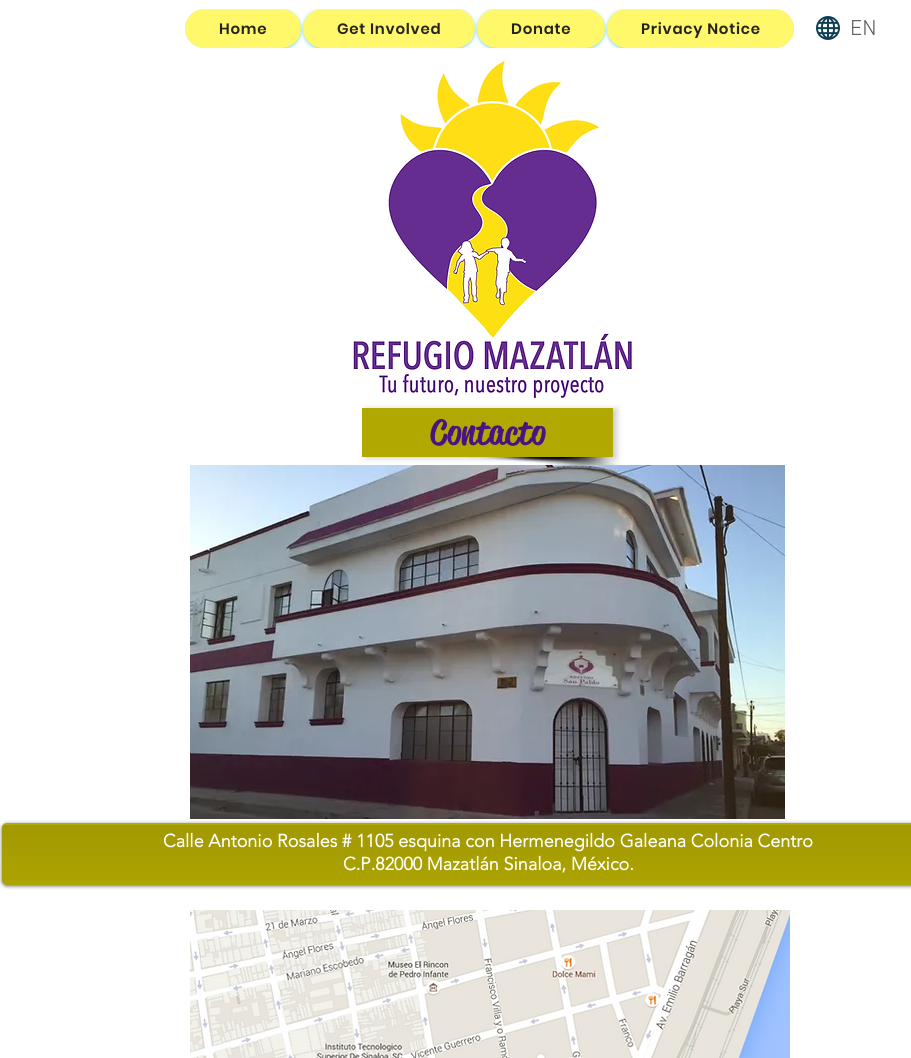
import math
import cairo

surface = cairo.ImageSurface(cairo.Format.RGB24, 911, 1058)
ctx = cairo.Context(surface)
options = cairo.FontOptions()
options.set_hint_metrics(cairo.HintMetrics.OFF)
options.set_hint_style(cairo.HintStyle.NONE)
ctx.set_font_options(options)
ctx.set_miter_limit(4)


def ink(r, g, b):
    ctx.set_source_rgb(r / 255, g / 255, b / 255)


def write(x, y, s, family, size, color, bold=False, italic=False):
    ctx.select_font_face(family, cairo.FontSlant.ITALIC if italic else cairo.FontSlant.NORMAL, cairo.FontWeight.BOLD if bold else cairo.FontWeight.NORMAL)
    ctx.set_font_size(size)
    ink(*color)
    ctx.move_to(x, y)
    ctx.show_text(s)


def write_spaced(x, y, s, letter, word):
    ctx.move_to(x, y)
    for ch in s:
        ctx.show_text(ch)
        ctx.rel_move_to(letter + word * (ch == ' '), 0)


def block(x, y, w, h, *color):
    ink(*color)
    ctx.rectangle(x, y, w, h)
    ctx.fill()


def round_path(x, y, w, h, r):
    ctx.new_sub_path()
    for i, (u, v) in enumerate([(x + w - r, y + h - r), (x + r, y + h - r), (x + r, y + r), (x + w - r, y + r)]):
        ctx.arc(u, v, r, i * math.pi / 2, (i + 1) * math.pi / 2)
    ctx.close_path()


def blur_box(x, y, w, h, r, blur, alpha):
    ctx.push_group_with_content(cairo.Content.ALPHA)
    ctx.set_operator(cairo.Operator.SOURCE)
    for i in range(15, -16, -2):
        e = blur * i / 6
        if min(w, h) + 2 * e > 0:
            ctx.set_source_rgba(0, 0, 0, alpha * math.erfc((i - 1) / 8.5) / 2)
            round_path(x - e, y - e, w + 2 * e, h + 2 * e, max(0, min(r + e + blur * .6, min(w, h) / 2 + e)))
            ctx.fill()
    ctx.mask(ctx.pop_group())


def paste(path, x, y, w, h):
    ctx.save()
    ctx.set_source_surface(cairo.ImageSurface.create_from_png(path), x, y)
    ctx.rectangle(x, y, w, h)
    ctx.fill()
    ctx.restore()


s1 = dict(family="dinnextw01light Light", size=22, color=(96, 94, 94))
s2 = dict(family="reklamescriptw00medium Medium", size=35, color=(74, 20, 128))
s3 = dict(family="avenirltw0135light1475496", size=18, color=(255, 255, 255), bold=True)

ink(255, 255, 255)
ctx.paint()
ctx.save()
round_path(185, 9, 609, 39, 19.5)
ctx.clip()
ink(48, 189, 255)
blur_box(186, 11, 114, 37, 18.5, 2, 1)
ctx.restore()
ink(255, 248, 107)
round_path(185, 9, 116, 39, 19.5)
ctx.fill()
ctx.select_font_face("Poppins SemiBold")
ctx.set_font_size(15)
ink(36, 35, 35)
write_spaced(219, 34, "Home", 0.75, 0)
ctx.save()
round_path(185, 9, 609, 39, 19.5)
ctx.clip()
ink(48, 189, 255)
blur_box(304, 11, 170, 37, 18.5, 2, 1)
ctx.restore()
ink(255, 248, 107)
round_path(303, 9, 172, 39, 19.5)
ctx.fill()
ink(36, 35, 35)
write_spaced(337, 34, "Get Involved", 0.75, 0)
ctx.save()
round_path(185, 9, 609, 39, 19.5)
ctx.clip()
ink(48, 189, 255)
blur_box(478, 11, 126, 37, 18.5, 2, 1)
ctx.restore()
ink(255, 248, 107)
round_path(477, 9, 128, 39, 19.5)
ctx.fill()
ink(36, 35, 35)
write_spaced(511, 34, "Donate", 0.75, 0)
ctx.save()
round_path(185, 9, 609, 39, 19.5)
ctx.clip()
ink(48, 189, 255)
blur_box(608, 11, 185, 37, 18.5, 2, 1)
ctx.restore()
ink(255, 248, 107)
round_path(607, 9, 187, 39, 19.5)
ctx.fill()
ink(36, 35, 35)
write_spaced(641, 34, "Privacy Notice", 0.75, 0)
paste("pic1.png", 816, 16, 24, 24)
write(850, 35, "EN", **s1)
paste("pic2.png", 353, 61, 279, 337)
paste("pic3.png", 468, 457, 153, 8)
ink(0, 0, 0)
blur_box(366, 409, 251, 49, 0, 3, 0.2)
block(362, 408, 251, 49, 177, 168, 1)
write(430, 444, "Contacto", **s2)
paste("pic4.png", 190, 465, 595, 354)
ink(0, 0, 0)
blur_box(2, 824, 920, 62, 5, 2, 0.6)
ink(178, 169, 1)
round_path(2, 823, 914, 62, 5)
ctx.fill()
paste("pic5.png", 2, 825, 909, 60)
write(163, 847, "Calle Antonio Rosales # 1105 esquina con Hermenegildo Galeana Colonia Centro", **s3)
write(343, 870, "C.P.82000 Mazatlán Sinaloa, México.", **s3)
paste("pic6.png", 190, 910, 600, 148)
surface.write_to_png("screenshot.png")
